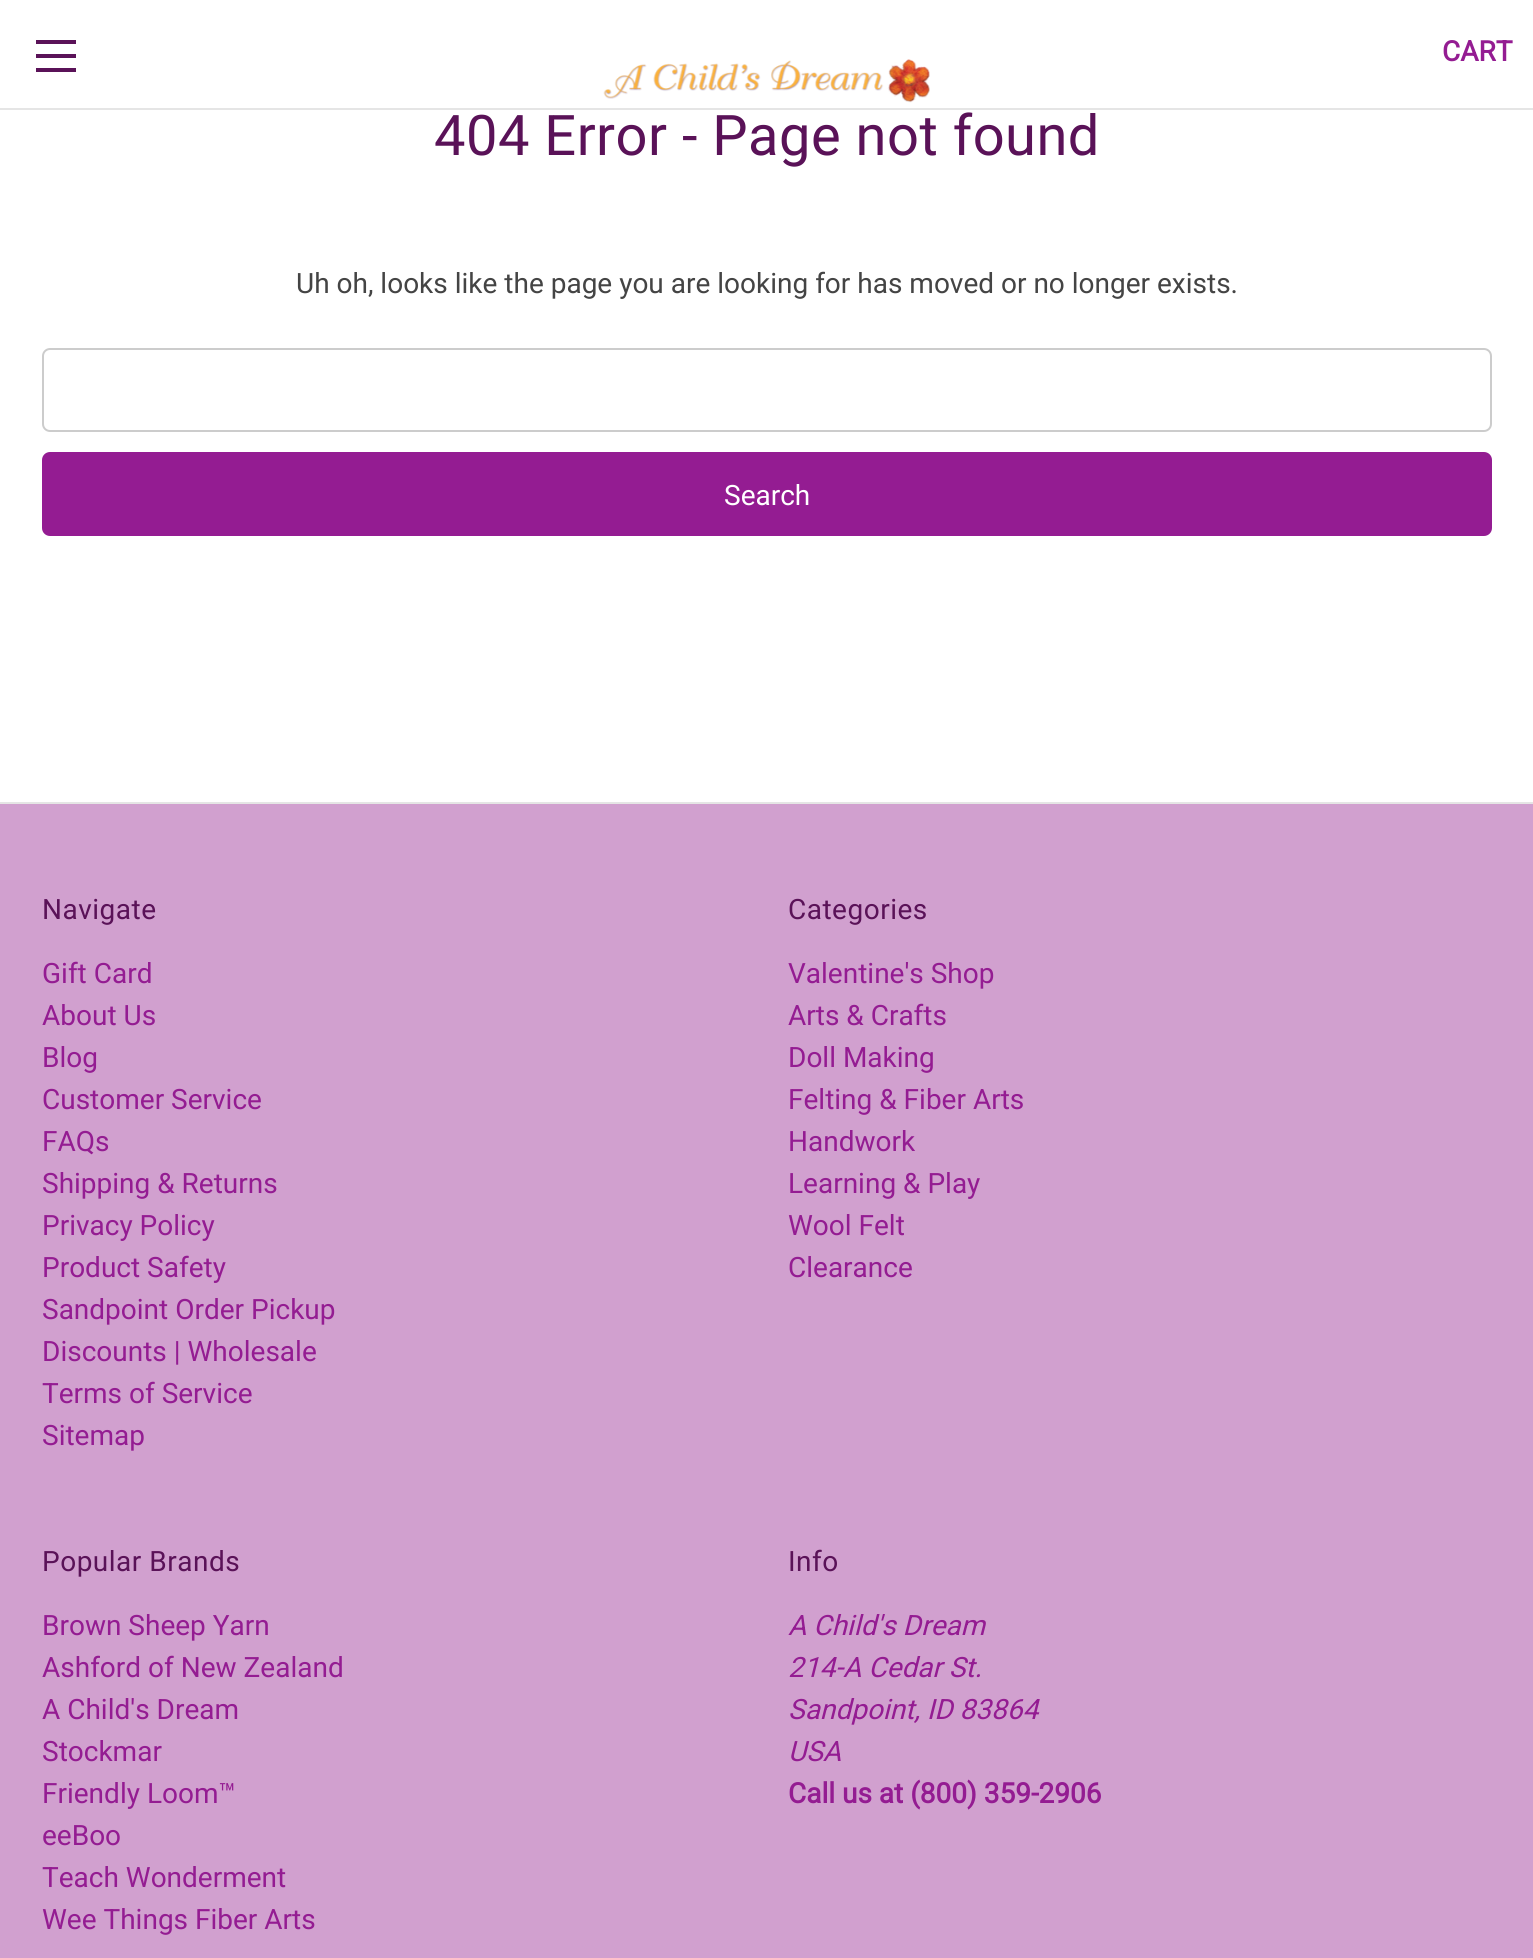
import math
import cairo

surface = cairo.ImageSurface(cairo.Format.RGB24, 1533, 1958)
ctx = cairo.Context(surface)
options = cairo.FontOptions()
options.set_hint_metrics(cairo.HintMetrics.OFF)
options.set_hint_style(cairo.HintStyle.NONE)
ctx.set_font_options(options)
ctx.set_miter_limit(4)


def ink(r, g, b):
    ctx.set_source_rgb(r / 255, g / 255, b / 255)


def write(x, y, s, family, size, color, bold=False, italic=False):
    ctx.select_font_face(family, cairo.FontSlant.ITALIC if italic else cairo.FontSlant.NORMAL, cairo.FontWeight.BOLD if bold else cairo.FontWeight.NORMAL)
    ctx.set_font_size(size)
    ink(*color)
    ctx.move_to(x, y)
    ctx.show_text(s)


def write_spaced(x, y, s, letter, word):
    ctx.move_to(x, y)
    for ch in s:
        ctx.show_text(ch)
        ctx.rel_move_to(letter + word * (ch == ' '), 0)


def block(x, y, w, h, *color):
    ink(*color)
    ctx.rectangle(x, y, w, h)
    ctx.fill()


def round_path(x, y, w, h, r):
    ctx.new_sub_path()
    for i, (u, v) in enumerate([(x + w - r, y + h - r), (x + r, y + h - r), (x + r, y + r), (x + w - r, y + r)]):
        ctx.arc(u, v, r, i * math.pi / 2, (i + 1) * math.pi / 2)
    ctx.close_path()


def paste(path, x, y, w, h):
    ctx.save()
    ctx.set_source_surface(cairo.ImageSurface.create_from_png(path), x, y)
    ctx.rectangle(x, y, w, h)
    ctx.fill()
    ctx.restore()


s1 = dict(family="Roboto", size=28, color=(148, 28, 146), bold=True)
s2 = dict(family="Roboto", size=28, color=(68, 68, 68))
s3 = dict(family="Roboto", size=28, color=(255, 255, 255))
s4 = dict(family="Roboto", size=28, color=(148, 28, 146))
s5 = dict(family="Roboto", size=28, color=(148, 28, 146), italic=True)

ink(255, 255, 255)
ctx.paint()
block(0, 108, 1533, 2, 229, 229, 229)
block(36, 54, 40, 4, 90, 18, 88)
block(36, 40, 40, 4, 90, 18, 88)
block(36, 68, 40, 4, 90, 18, 88)
write(1442, 61, "CART", **s1)
paste("pic1.png", 603, 59, 327, 44)
ctx.select_font_face("Roboto")
ctx.set_font_size(56)
ink(90, 18, 88)
write_spaced(434, 155, "404 Error - Page not found", 0.5, 0)
write(296, 293, "Uh oh, looks like the page you are looking for has moved or no longer exists.", **s2)
round_path(43, 349, 1448, 82, 7)
ink(204, 204, 204)
ctx.stroke()
ink(148, 28, 146)
round_path(43, 453, 1448, 82, 7)
ctx.fill_preserve()
ctx.stroke()
write(724, 505, "Search", **s3)
block(0, 804, 1533, 1154, 209, 160, 207)
block(0, 802, 1533, 2, 229, 229, 229)
ink(90, 18, 88)
write_spaced(42, 919, "Navigate", 0.5, 0)
write(42, 983, "Gift Card", **s4)
write(42, 1025, "About Us", **s4)
write(42, 1067, "Blog", **s4)
write(42, 1109, "Customer Service", **s4)
write(42, 1151, "FAQs", **s4)
write(42, 1193, "Shipping & Returns", **s4)
write(42, 1235, "Privacy Policy", **s4)
write(42, 1277, "Product Safety", **s4)
write(42, 1319, "Sandpoint Order Pickup", **s4)
write(42, 1361, "Discounts | Wholesale", **s4)
write(42, 1403, "Terms of Service", **s4)
write(42, 1445, "Sitemap", **s4)
ink(90, 18, 88)
write_spaced(788, 919, "Categories", 0.5, 0)
write(788, 983, "Valentine's Shop", **s4)
write(788, 1025, "Arts & Crafts", **s4)
write(788, 1067, "Doll Making", **s4)
write(788, 1109, "Felting & Fiber Arts", **s4)
write(788, 1151, "Handwork", **s4)
write(788, 1193, "Learning & Play", **s4)
write(788, 1235, "Wool Felt", **s4)
write(788, 1277, "Clearance", **s4)
ink(90, 18, 88)
write_spaced(42, 1571, "Popular Brands", 0.5, 0)
write(42, 1635, "Brown Sheep Yarn", **s4)
write(42, 1677, "Ashford of New Zealand", **s4)
write(42, 1719, "A Child's Dream", **s4)
write(42, 1761, "Stockmar", **s4)
write(42, 1803, "Friendly Loom™", **s4)
write(42, 1845, "eeBoo", **s4)
write(42, 1887, "Teach Wonderment", **s4)
write(42, 1929, "Wee Things Fiber Arts", **s4)
ink(90, 18, 88)
write_spaced(788, 1571, "Info", 0.5, 0)
write(788, 1635, "A Child's Dream", **s5)
write(788, 1677, "214-A Cedar St.", **s5)
write(788, 1719, "Sandpoint, ID 83864", **s5)
write(788, 1761, "USA", **s5)
write(788, 1803, "Call us at (800) 359-2906", **s1)
surface.write_to_png("screenshot.png")
